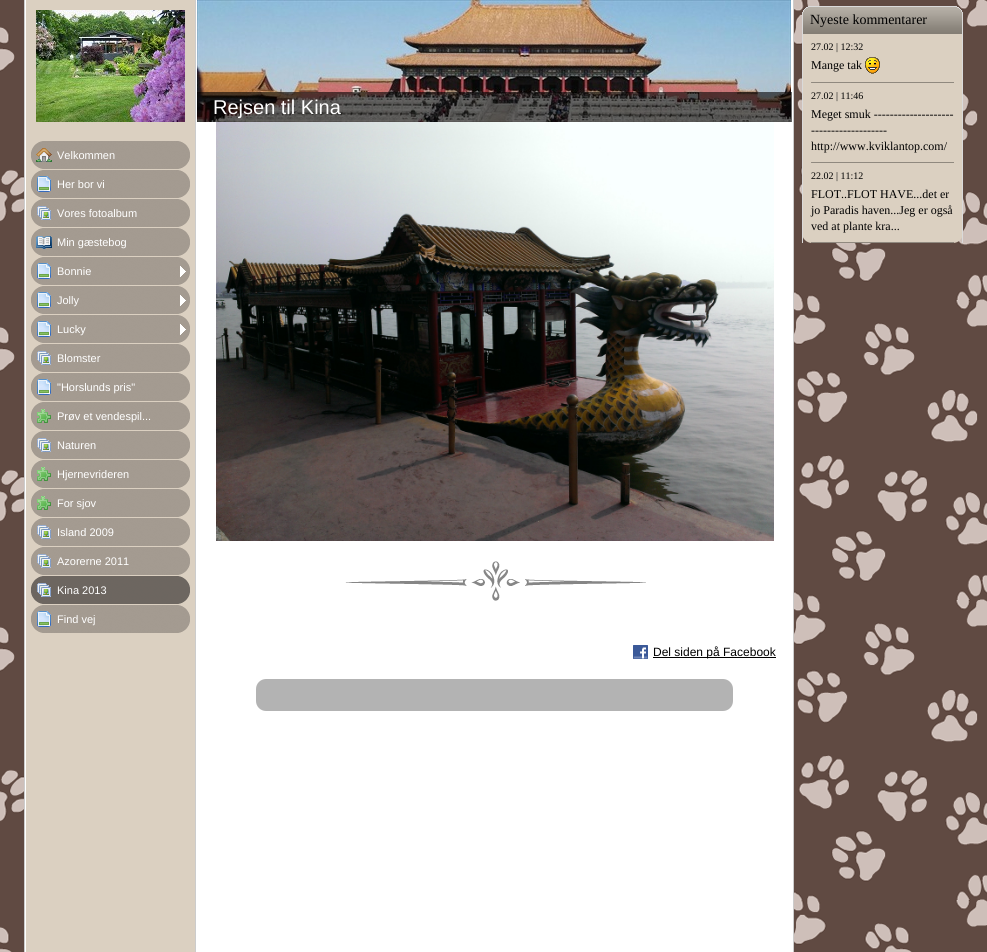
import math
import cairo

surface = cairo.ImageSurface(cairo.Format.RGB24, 987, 952)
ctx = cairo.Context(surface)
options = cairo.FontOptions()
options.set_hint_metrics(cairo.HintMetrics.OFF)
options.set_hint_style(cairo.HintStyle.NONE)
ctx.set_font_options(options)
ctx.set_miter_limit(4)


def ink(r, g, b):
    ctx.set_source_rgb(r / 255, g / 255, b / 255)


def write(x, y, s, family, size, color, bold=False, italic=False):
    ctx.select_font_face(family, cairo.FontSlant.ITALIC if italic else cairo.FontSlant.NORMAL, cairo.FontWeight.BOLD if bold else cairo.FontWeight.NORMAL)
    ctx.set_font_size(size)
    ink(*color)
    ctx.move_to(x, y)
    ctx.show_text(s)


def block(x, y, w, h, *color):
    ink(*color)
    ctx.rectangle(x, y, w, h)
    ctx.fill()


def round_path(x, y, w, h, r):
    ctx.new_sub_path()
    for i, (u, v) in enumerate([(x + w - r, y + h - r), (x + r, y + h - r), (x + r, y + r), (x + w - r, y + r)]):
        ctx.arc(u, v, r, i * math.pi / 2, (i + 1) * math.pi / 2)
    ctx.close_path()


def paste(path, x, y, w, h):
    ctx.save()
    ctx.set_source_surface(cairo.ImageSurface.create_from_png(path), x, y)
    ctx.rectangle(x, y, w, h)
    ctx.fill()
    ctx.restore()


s1 = dict(family="Liberation Sans", size=11, color=(255, 255, 255))
s2 = dict(family="Liberation Sans", size=20, color=(255, 255, 255))
s3 = dict(family="Liberation Sans", size=12, color=(0, 0, 0))
s4 = dict(family="Liberation Serif", size=14, color=(0, 0, 0))
s5 = dict(family="Liberation Serif", size=10, color=(0, 0, 0))
s6 = dict(family="Liberation Serif", size=12, color=(0, 0, 0))

ink(255, 255, 255)
ctx.paint()
paste("pic1.png", 0, 0, 987, 952)
block(25, 0, 768, 952, 255, 255, 255)
block(24, 0, 1, 952, 204, 204, 204)
block(26, 0, 169, 952, 219, 208, 193)
paste("pic2.png", 36, 10, 149, 112)
paste("pic3.png", 31, 141, 159, 28)
paste("pic4.png", 36, 148, 16, 14)
write(57, 159, "Velkommen", **s1)
paste("pic3.png", 31, 170, 159, 28)
paste("pic5.png", 37, 176, 14, 16)
write(57, 188, "Her bor vi", **s1)
paste("pic3.png", 31, 199, 159, 28)
paste("pic6.png", 37, 206, 14, 14)
write(57, 217, "Vores fotoalbum", **s1)
paste("pic3.png", 31, 228, 159, 28)
paste("pic7.png", 36, 236, 16, 13)
write(57, 246, "Min gæstebog", **s1)
paste("pic3.png", 31, 257, 159, 28)
paste("pic5.png", 37, 263, 14, 16)
paste("pic8.png", 180, 266, 6, 11)
write(57, 275, "Bonnie", **s1)
paste("pic3.png", 31, 286, 159, 28)
paste("pic5.png", 37, 292, 14, 16)
paste("pic8.png", 180, 295, 6, 11)
write(57, 304, "Jolly", **s1)
paste("pic3.png", 31, 315, 159, 28)
paste("pic5.png", 37, 321, 14, 16)
paste("pic8.png", 180, 324, 6, 11)
write(57, 333, "Lucky", **s1)
paste("pic3.png", 31, 344, 159, 28)
paste("pic6.png", 37, 351, 14, 14)
write(57, 362, "Blomster", **s1)
paste("pic3.png", 31, 373, 159, 28)
paste("pic5.png", 37, 379, 14, 16)
write(57, 391, "\"Horslunds pris\"", **s1)
paste("pic3.png", 31, 402, 159, 28)
paste("pic9.png", 37, 409, 14, 14)
write(57, 420, "Prøv et vendespil...", **s1)
paste("pic3.png", 31, 431, 159, 28)
paste("pic6.png", 37, 438, 14, 14)
write(57, 449, "Naturen", **s1)
paste("pic3.png", 31, 460, 159, 28)
paste("pic9.png", 37, 467, 14, 14)
write(57, 478, "Hjernevrideren", **s1)
paste("pic3.png", 31, 489, 159, 28)
paste("pic9.png", 37, 496, 14, 14)
write(57, 507, "For sjov", **s1)
paste("pic3.png", 31, 518, 159, 28)
paste("pic6.png", 37, 525, 14, 14)
write(57, 536, "Island 2009", **s1)
paste("pic3.png", 31, 547, 159, 28)
paste("pic6.png", 37, 554, 14, 14)
write(57, 565, "Azorerne 2011", **s1)
paste("pic10.png", 31, 576, 159, 28)
paste("pic11.png", 37, 583, 14, 14)
write(57, 594, "Kina 2013", **s1)
paste("pic3.png", 31, 605, 159, 28)
paste("pic5.png", 37, 611, 14, 16)
write(57, 623, "Find vej", **s1)
block(195, 0, 1, 952, 204, 204, 204)
paste("pic12.png", 197, 0, 594, 122)
ctx.set_source_rgba(0, 0, 0, 0.6)
ctx.rectangle(197, 92, 595, 30)
ctx.fill()
write(213, 114, "Rejsen til Kina", **s2)
paste("pic13.png", 216, 122, 558, 419)
paste("pic14.png", 345, 561, 301, 40)
paste("pic15.png", 633, 645, 15, 14)
block(653, 657, 123, 1, 0, 0, 0)
write(653, 656, "Del siden på Facebook", **s3)
ink(179, 179, 179)
round_path(256, 679, 477, 32, 10)
ctx.fill()
block(793, 0, 1, 952, 204, 204, 204)
ink(219, 208, 193)
round_path(802, 6, 161, 237, 10)
ctx.fill()
paste("pic16.png", 802, 6, 161, 28)
write(810, 24, "Nyeste kommentarer", **s4)
block(962, 34, 1, 209, 218, 218, 218)
block(802, 34, 1, 209, 218, 218, 218)
write(811, 50, "27.02 | 12:32", **s5)
write(811, 69, "Mange tak", **s6)
paste("pic17.png", 865, 57, 15, 17)
paste("pic18.png", 811, 82, 143, 1)
write(811, 99, "27.02 | 11:46", **s5)
write(811, 118, "Meget smuk --------------------", **s6)
write(811, 134, "-------------------", **s6)
write(811, 150, "http://www.kviklantop.com/", **s6)
paste("pic18.png", 811, 162, 143, 1)
write(811, 179, "22.02 | 11:12", **s5)
write(811, 198, "FLOT..FLOT HAVE...det er", **s6)
write(811, 214, "jo Paradis haven...Jeg er også", **s6)
write(811, 230, "ved at plante kra...", **s6)
paste("pic19.png", 811, 242, 143, 1)
surface.write_to_png("screenshot.png")
